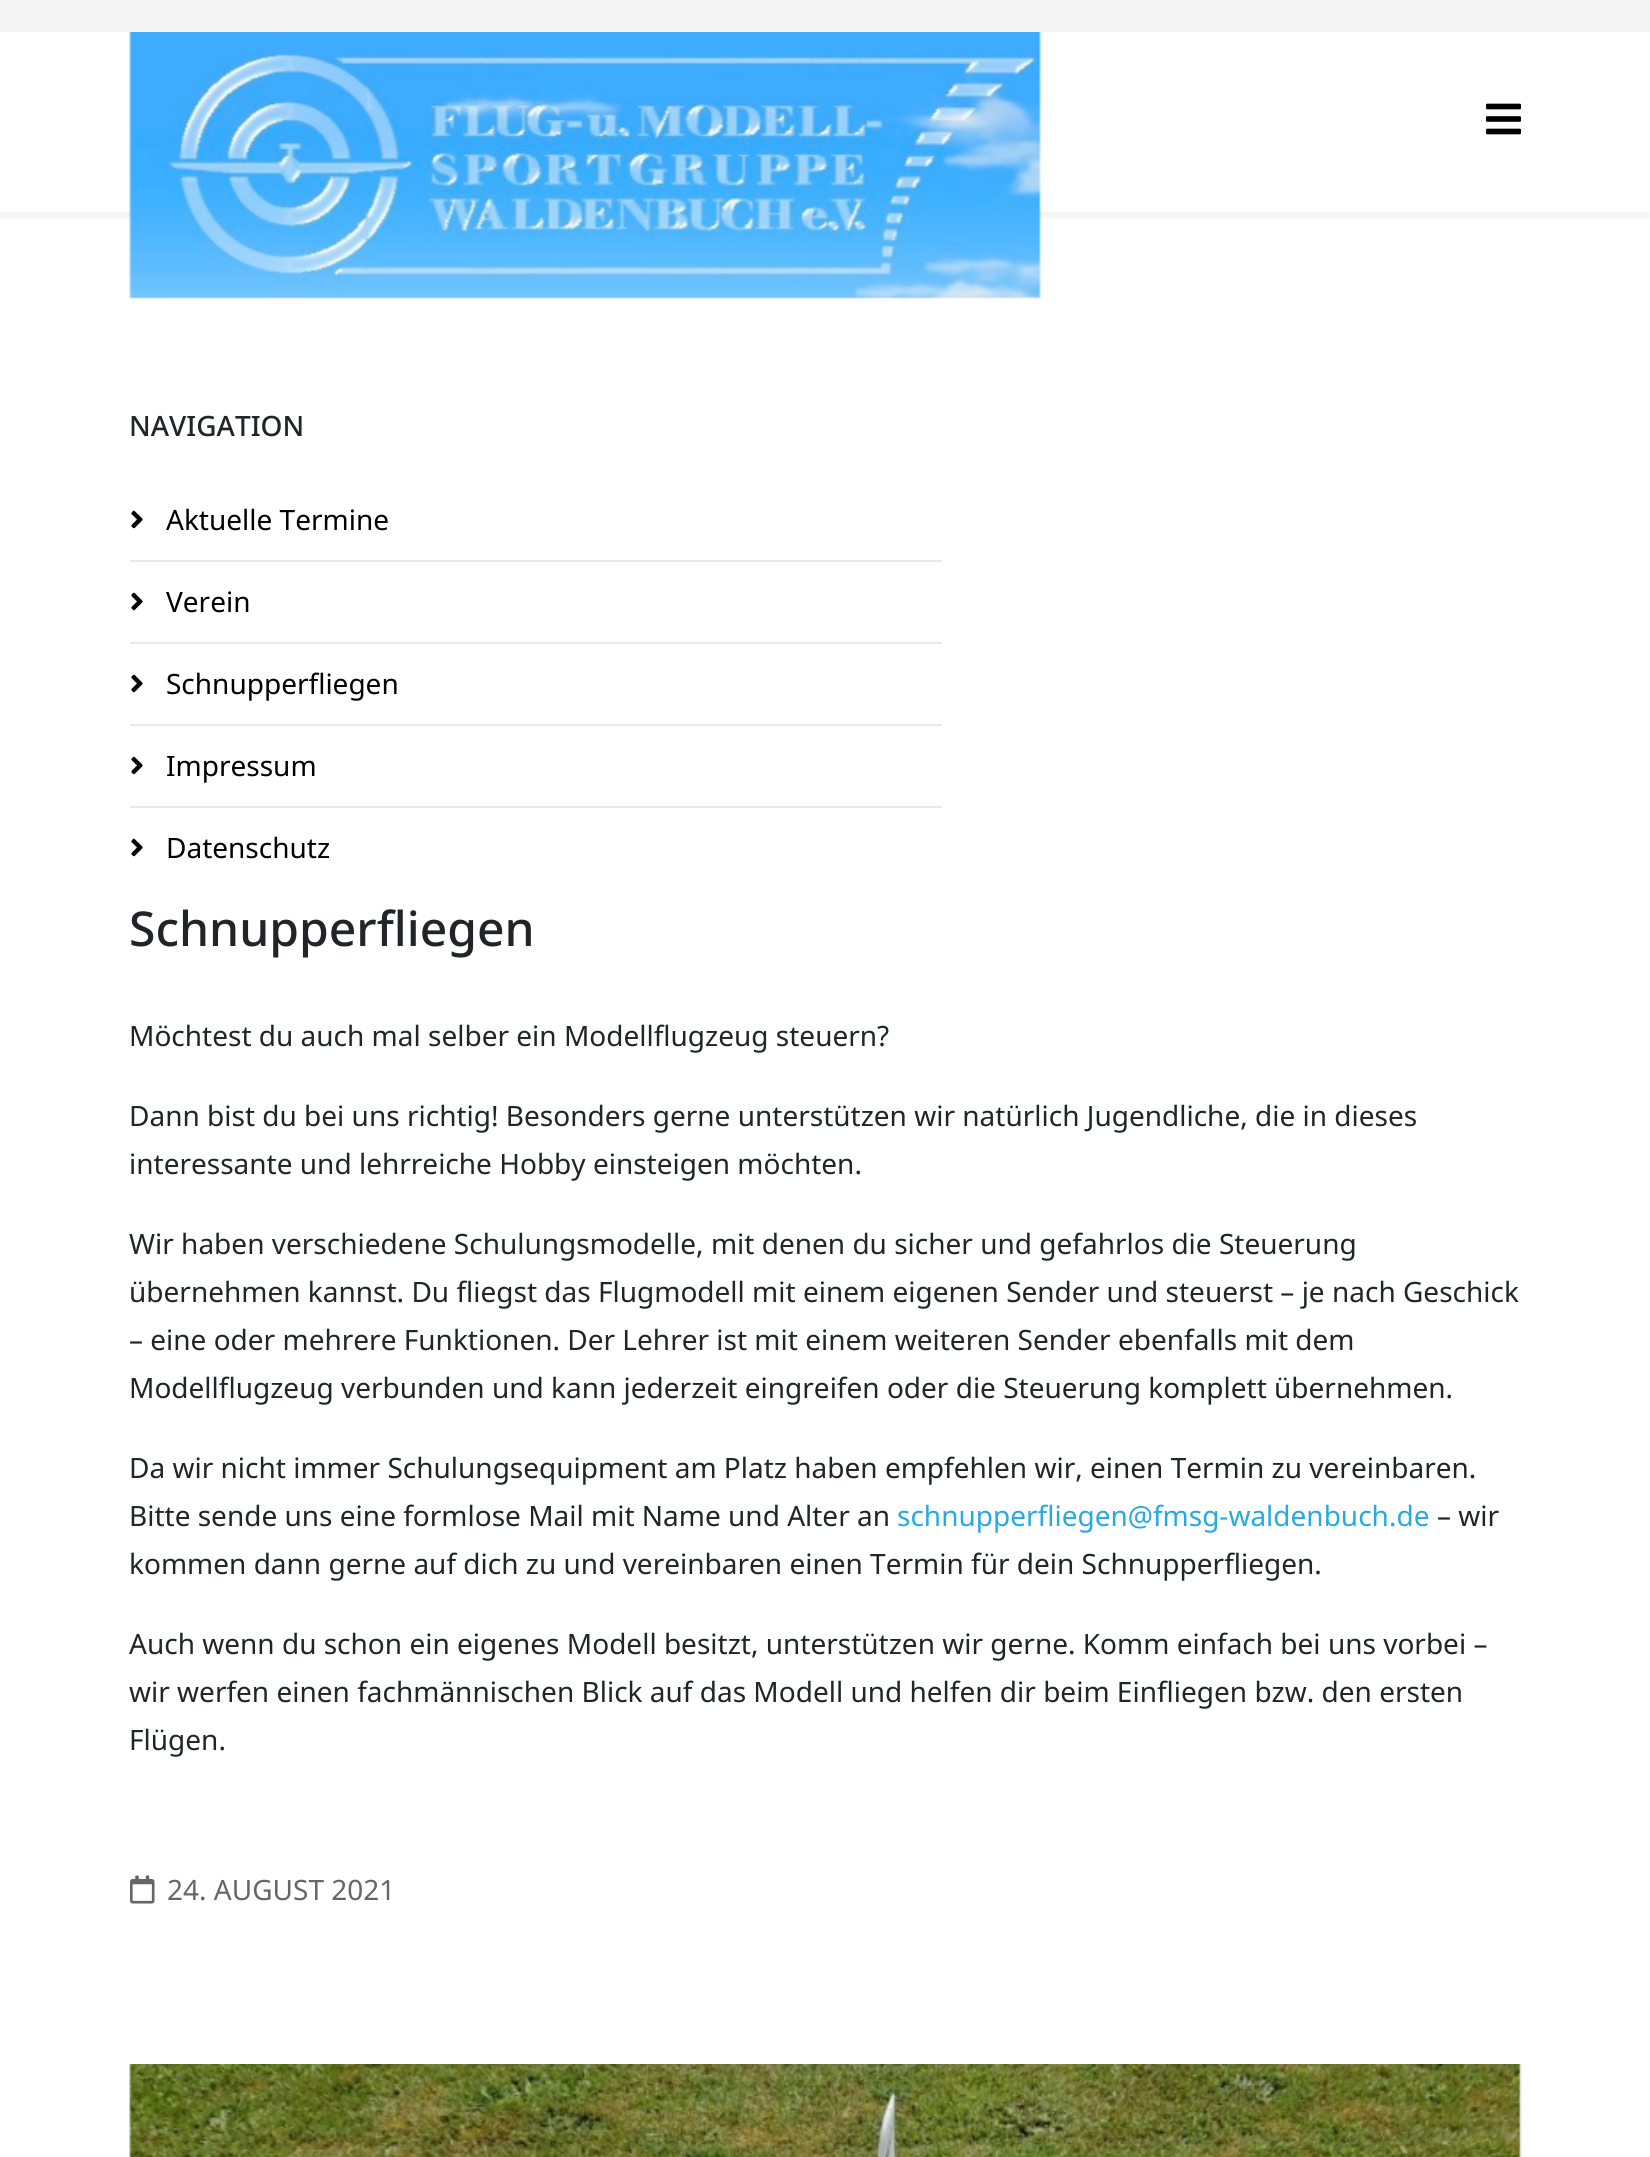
import math
import cairo

surface = cairo.ImageSurface(cairo.Format.RGB24, 1650, 2157)
ctx = cairo.Context(surface)
options = cairo.FontOptions()
options.set_hint_metrics(cairo.HintMetrics.OFF)
options.set_hint_style(cairo.HintStyle.NONE)
ctx.set_font_options(options)
ctx.set_miter_limit(4)


def ink(r, g, b):
    ctx.set_source_rgb(r / 255, g / 255, b / 255)


def write(x, y, s, family, size, color, bold=False, italic=False):
    ctx.select_font_face(family, cairo.FontSlant.ITALIC if italic else cairo.FontSlant.NORMAL, cairo.FontWeight.BOLD if bold else cairo.FontWeight.NORMAL)
    ctx.set_font_size(size)
    ink(*color)
    ctx.move_to(x, y)
    ctx.show_text(s)


def block(x, y, w, h, *color):
    ink(*color)
    ctx.rectangle(x, y, w, h)
    ctx.fill()


def round_path(x, y, w, h, r):
    ctx.new_sub_path()
    for i, (u, v) in enumerate([(x + w - r, y + h - r), (x + r, y + h - r), (x + r, y + r), (x + w - r, y + r)]):
        ctx.arc(u, v, r, i * math.pi / 2, (i + 1) * math.pi / 2)
    ctx.close_path()


def blur_box(x, y, w, h, r, blur, alpha):
    ctx.push_group_with_content(cairo.Content.ALPHA)
    ctx.set_operator(cairo.Operator.SOURCE)
    for i in range(15, -16, -2):
        e = blur * i / 6
        if min(w, h) + 2 * e > 0:
            ctx.set_source_rgba(0, 0, 0, alpha * math.erfc((i - 1) / 8.5) / 2)
            round_path(x - e, y - e, w + 2 * e, h + 2 * e, max(0, min(r + e + blur * .6, min(w, h) / 2 + e)))
            ctx.fill()
    ctx.mask(ctx.pop_group())


def paste(path, x, y, w, h):
    ctx.save()
    ctx.set_source_surface(cairo.ImageSurface.create_from_png(path), x, y)
    ctx.rectangle(x, y, w, h)
    ctx.fill()
    ctx.restore()


s1 = dict(family="Noto Sans Medium", size=28, color=(33, 37, 41))
s2 = dict(family="Noto Sans", size=28, color=(0, 0, 0))
s3 = dict(family="Noto Sans Medium", size=48, color=(33, 37, 41))
s4 = dict(family="Noto Sans", size=28, color=(33, 37, 41))
s5 = dict(family="Noto Sans", size=28, color=(38, 170, 225))
s6 = dict(family="Noto Sans", size=28, color=(102, 102, 102))

ink(255, 255, 255)
ctx.paint()
block(0, 0, 1650, 32, 245, 245, 245)
ctx.save()
ctx.rectangle(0, 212, 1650, 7)
ctx.clip()
ink(0, 0, 0)
blur_box(0, 38, 1650, 180, 0, 3, 0.05)
ctx.restore()
paste("pic1.png", 129, 32, 913, 268)
paste("pic2.png", 1486, 103, 35, 32)
write(129, 436, "NAVIGATION", **s1)
block(130, 560, 812, 2, 232, 232, 232)
paste("pic3.png", 131, 510, 12, 19)
write(166, 530, "Aktuelle Termine", **s2)
block(130, 642, 812, 2, 232, 232, 232)
paste("pic3.png", 131, 592, 12, 19)
write(166, 612, "Verein", **s2)
block(130, 724, 812, 2, 232, 232, 232)
paste("pic3.png", 131, 674, 12, 19)
write(166, 694, "Schnupperfliegen", **s2)
block(130, 806, 812, 2, 232, 232, 232)
paste("pic3.png", 131, 756, 12, 19)
write(166, 776, "Impressum", **s2)
paste("pic3.png", 131, 838, 12, 19)
write(166, 858, "Datenschutz", **s2)
write(129, 946, "Schnupperfliegen", **s3)
write(129, 1046, "Möchtest du auch mal selber ein Modellflugzeug steuern?", **s4)
write(129, 1126, "Dann bist du bei uns richtig! Besonders gerne unterstützen wir natürlich Jugendliche, die in dieses", **s4)
write(129, 1174, "interessante und lehrreiche Hobby einsteigen möchten.", **s4)
write(129, 1254, "Wir haben verschiedene Schulungsmodelle, mit denen du sicher und gefahrlos die Steuerung", **s4)
write(129, 1302, "übernehmen kannst. Du fliegst das Flugmodell mit einem eigenen Sender und steuerst – je nach Geschick", **s4)
write(129, 1350, "– eine oder mehrere Funktionen. Der Lehrer ist mit einem weiteren Sender ebenfalls mit dem", **s4)
write(129, 1398, "Modellflugzeug verbunden und kann jederzeit eingreifen oder die Steuerung komplett übernehmen.", **s4)
write(129, 1478, "Da wir nicht immer Schulungsequipment am Platz haben empfehlen wir, einen Termin zu vereinbaren.", **s4)
write(129, 1526, "Bitte sende uns eine formlose Mail mit Name und Alter an", **s4)
write(897, 1526, "schnupperfliegen@fmsg-waldenbuch.de", **s5)
write(1437, 1526, "– wir", **s4)
write(129, 1574, "kommen dann gerne auf dich zu und vereinbaren einen Termin für dein Schnupperfliegen.", **s4)
write(129, 1654, "Auch wenn du schon ein eigenes Modell besitzt, unterstützen wir gerne. Komm einfach bei uns vorbei –", **s4)
write(129, 1702, "wir werfen einen fachmännischen Blick auf das Modell und helfen dir beim Einfliegen bzw. den ersten", **s4)
write(129, 1750, "Flügen.", **s4)
paste("pic4.png", 130, 1875, 25, 29)
write(167, 1900, "24. AUGUST 2021", **s6)
paste("pic5.png", 129, 2064, 1393, 93)
surface.write_to_png("screenshot.png")
